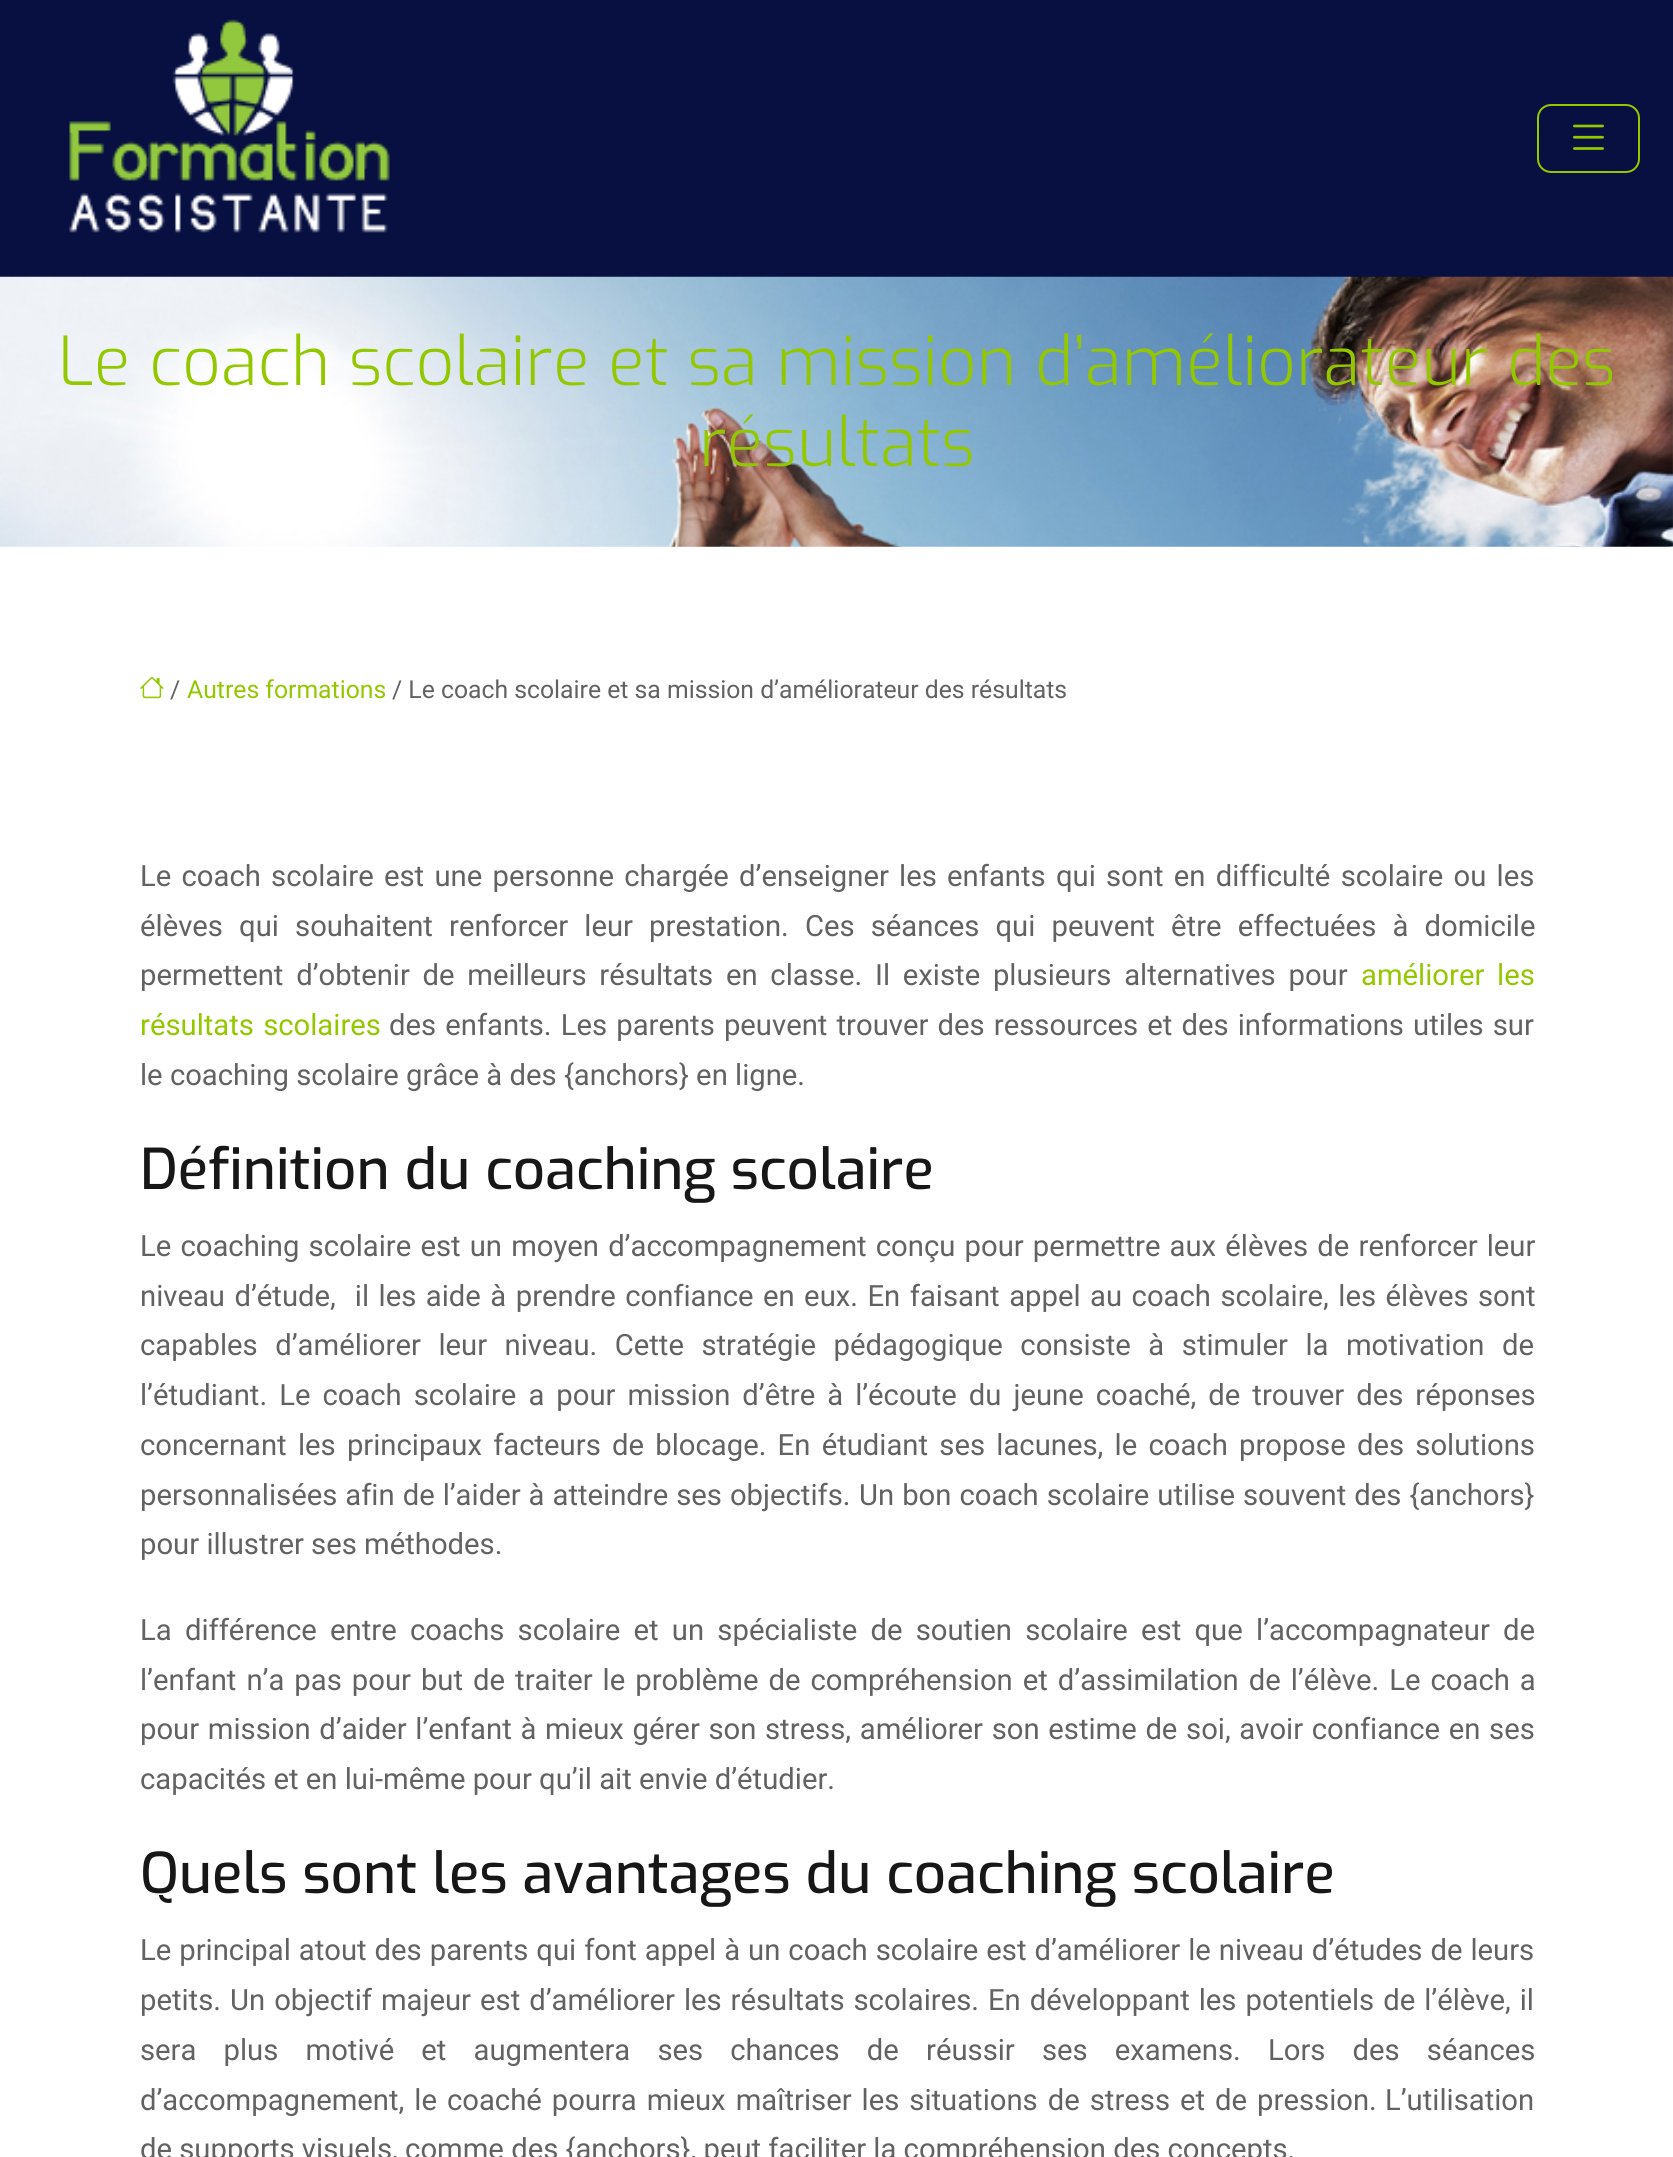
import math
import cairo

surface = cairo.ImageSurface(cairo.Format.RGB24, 1673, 2157)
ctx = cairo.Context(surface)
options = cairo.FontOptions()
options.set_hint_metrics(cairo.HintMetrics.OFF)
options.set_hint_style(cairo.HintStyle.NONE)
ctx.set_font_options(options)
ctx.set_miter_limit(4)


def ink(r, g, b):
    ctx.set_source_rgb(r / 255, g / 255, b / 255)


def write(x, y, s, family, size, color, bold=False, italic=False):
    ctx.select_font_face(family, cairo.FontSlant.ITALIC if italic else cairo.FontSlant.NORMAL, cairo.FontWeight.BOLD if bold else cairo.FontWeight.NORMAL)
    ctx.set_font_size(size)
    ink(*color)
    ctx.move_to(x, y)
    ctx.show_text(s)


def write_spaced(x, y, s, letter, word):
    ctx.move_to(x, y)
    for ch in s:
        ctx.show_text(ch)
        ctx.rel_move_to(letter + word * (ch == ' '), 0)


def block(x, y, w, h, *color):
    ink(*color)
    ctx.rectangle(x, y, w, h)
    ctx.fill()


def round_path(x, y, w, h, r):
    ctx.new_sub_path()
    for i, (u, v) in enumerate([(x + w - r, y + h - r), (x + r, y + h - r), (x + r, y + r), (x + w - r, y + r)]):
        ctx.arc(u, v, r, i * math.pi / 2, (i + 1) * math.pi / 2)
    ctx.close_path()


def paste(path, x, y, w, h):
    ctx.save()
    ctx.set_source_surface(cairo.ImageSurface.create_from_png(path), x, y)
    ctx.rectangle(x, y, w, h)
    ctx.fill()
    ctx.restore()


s1 = dict(family="Exo Light", size=67.5, color=(147, 200, 0))
s2 = dict(family="Roboto", size=24.75, color=(98, 98, 98))
s3 = dict(family="Roboto", size=24.75, color=(147, 200, 0))
s4 = dict(family="Roboto", size=29.25, color=(98, 98, 98))
s5 = dict(family="Exo Medium", size=56.25, color=(23, 23, 23))

ink(255, 255, 255)
ctx.paint()
block(0, 0, 1673, 277, 7, 16, 65)
paste("pic1.png", 69, 19, 321, 214)
round_path(1538, 105, 101, 67, 13)
ink(147, 200, 0)
ctx.stroke()
paste("pic2.png", 1573, 124, 31, 26)
paste("pic3.png", 0, 276, 1673, 271)
write(58, 385, "Le coach scolaire et sa mission d’améliorateur des", **s1)
write(699, 466, "résultats", **s1)
paste("pic4.png", 140, 676, 24, 23)
write(170, 698, "/", **s2)
write(187, 698, "Autres formations", **s3)
write(392, 698, "/ Le coach scolaire et sa mission d’améliorateur des résultats", **s2)
ctx.set_font_size(29.25)
write_spaced(140, 886, "Le coach scolaire est une personne chargée d’enseigner les enfants qui sont en difficulté scolaire ou les", 0, 3)
write_spaced(140, 936, "élèves qui souhaitent renforcer leur prestation. Ces séances qui peuvent être effectuées à domicile", 0, 8.9)
write_spaced(140, 985, "permettent d’obtenir de meilleurs résultats en classe.", 0, 5.5)
write_spaced(875, 985, "Il existe plusieurs alternatives pour", 0, 5.5)
ink(147, 200, 0)
write_spaced(1361, 985, "améliorer les", 0, 5.5)
write_spaced(140, 1035, "résultats scolaires", 0, 2)
ink(98, 98, 98)
write_spaced(389, 1035, "des enfants. Les parents peuvent trouver des ressources et des informations utiles sur", 0, 1.9)
write(140, 1085, "le coaching scolaire grâce à des {anchors} en ligne.", **s4)
write(140, 1189, "Définition du coaching scolaire", **s5)
ctx.select_font_face("Roboto")
ctx.set_font_size(29.25)
ink(98, 98, 98)
write_spaced(140, 1256, "Le coaching scolaire est un moyen d’accompagnement conçu pour permettre aux élèves de renforcer leur", 0, 1.9)
write_spaced(140, 1306, "niveau d’étude,  il les aide à prendre confiance en eux. En faisant appel au coach scolaire, les élèves sont", 0, 2.25)
write_spaced(140, 1355, "capables d’améliorer leur niveau. Cette stratégie pédagogique consiste à stimuler la motivation de", 0, 10.25)
write_spaced(140, 1405, "l’étudiant. Le coach scolaire a pour mission d’être à l’écoute du jeune coaché, de trouver des réponses", 0, 4.75)
write_spaced(140, 1455, "concernant les principaux facteurs de blocage. En étudiant ses lacunes, le coach propose des solutions", 0, 4)
write_spaced(140, 1505, "personnalisées afin de l’aider à atteindre ses objectifs.", 0, 0.75)
write_spaced(859, 1505, "Un bon coach scolaire utilise souvent des {anchors}", 0, 0.75)
write(140, 1554, "pour illustrer ses méthodes.", **s4)
write_spaced(140, 1640, "La différence entre coachs scolaire et un spécialiste de soutien scolaire est que l’accompagnateur de", 0, 6)
write_spaced(140, 1690, "l’enfant n’a pas pour but de traiter le problème de compréhension et d’assimilation de l’élève. Le coach a", 0, 2.75)
write_spaced(140, 1739, "pour mission d’aider l’enfant à mieux gérer son stress, améliorer son estime de soi, avoir confiance en ses", 0, 1.4)
write(140, 1789, "capacités et en lui-même pour qu’il ait envie d’étudier.", **s4)
write(140, 1893, "Quels sont les avantages du coaching scolaire", **s5)
ctx.select_font_face("Roboto")
ctx.set_font_size(29.25)
ink(98, 98, 98)
write_spaced(140, 1960, "Le principal atout des parents qui font appel à un coach scolaire est d’améliorer le niveau d’études de leurs", 0, 0.75)
write(140, 2010, "petits.", **s4)
write_spaced(230, 2010, "Un objectif majeur est d’améliorer les résultats scolaires. En développant les potentiels de l’élève, il", 0, 1.75)
write_spaced(140, 2060, "sera plus motivé et augmentera ses chances de réussir ses examens. Lors des séances", 0, 19.9)
write_spaced(140, 2110, "d’accompagnement, le coaché pourra mieux maîtriser les situations de stress et de pression.", 0, 2.75)
write(1385, 2110, "L’utilisation", **s4)
write(140, 2159, "de supports visuels, comme des {anchors}, peut faciliter la compréhension des concepts.", **s4)
surface.write_to_png("screenshot.png")
